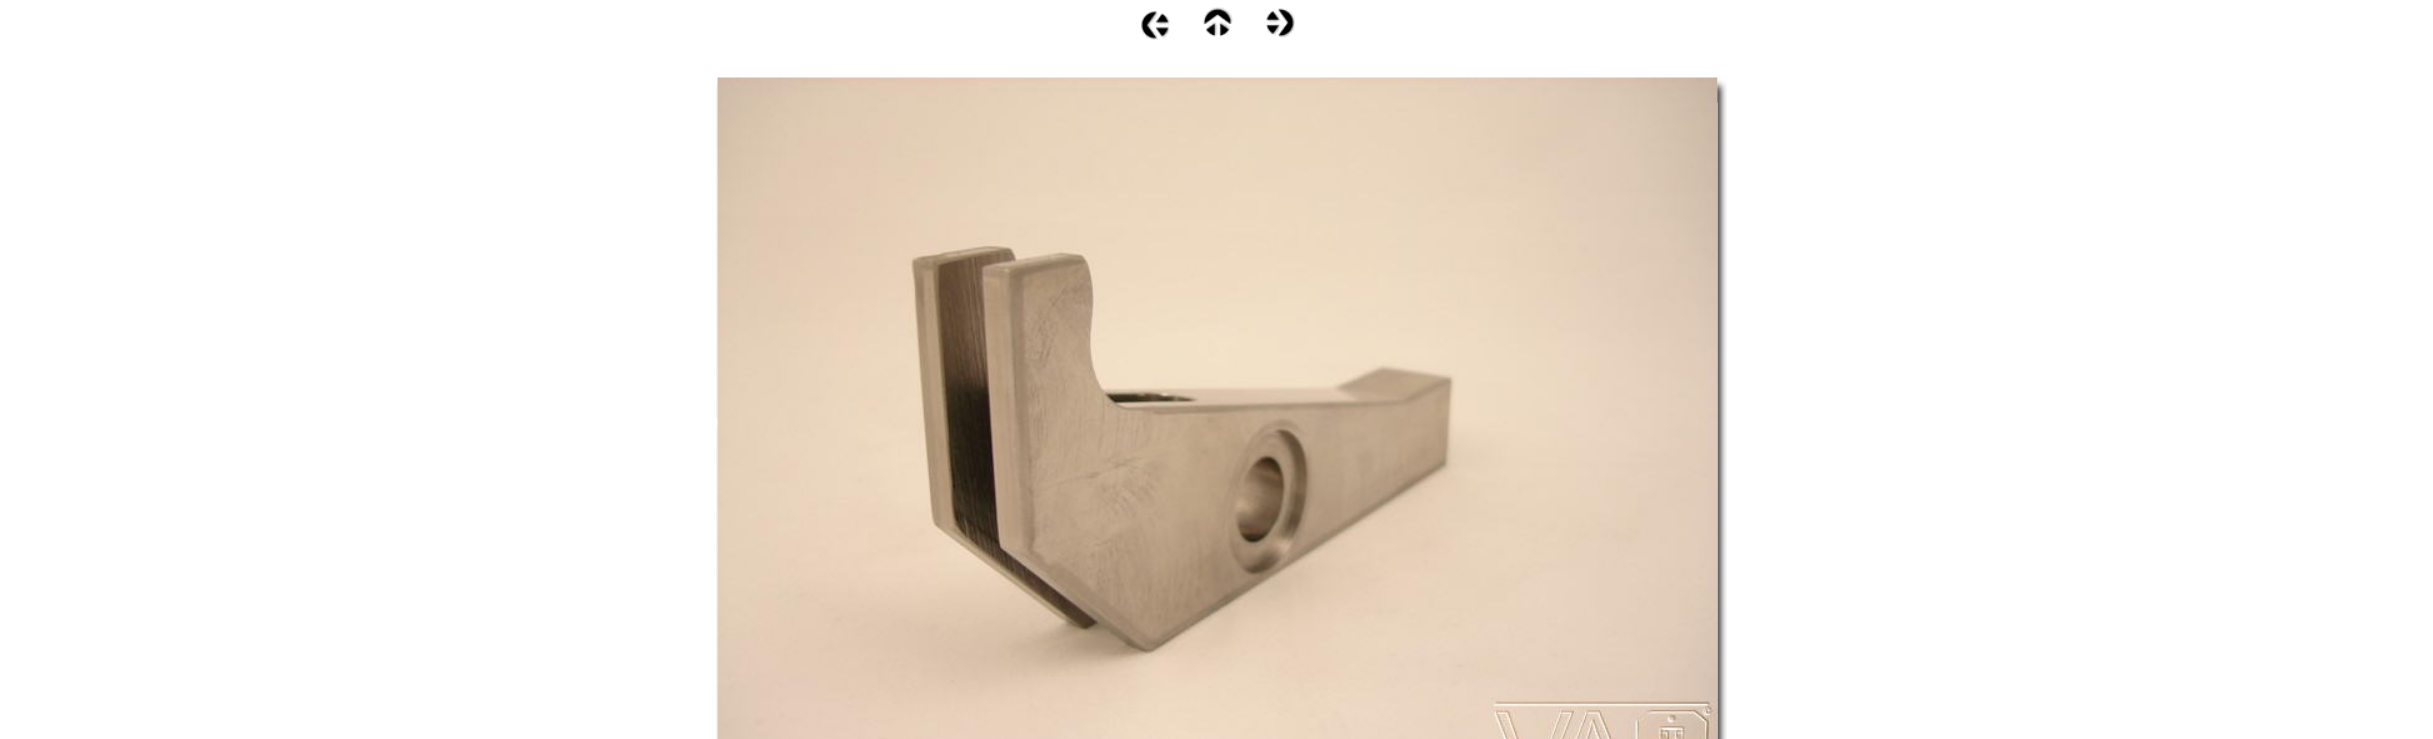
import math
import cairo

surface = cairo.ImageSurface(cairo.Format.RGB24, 2433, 739)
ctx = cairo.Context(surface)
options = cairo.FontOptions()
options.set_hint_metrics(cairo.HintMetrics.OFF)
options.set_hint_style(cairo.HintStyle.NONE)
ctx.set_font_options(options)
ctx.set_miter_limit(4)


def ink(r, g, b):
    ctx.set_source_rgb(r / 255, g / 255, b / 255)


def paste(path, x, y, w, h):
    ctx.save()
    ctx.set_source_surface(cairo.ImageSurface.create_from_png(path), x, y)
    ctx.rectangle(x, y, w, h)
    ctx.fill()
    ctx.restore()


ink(255, 255, 255)
ctx.paint()
paste("pic1.png", 1141, 11, 29, 29)
paste("pic2.png", 1203, 7, 30, 30)
paste("pic3.png", 1266, 8, 29, 30)
paste("pic5.png", 1717, 79, 10, 660)
paste("pic7.png", 716, 84, 2, 655)
paste("pic4.png", 717, 77, 1001, 662)
paste("pic6.png", 1717, 77, 7, 26)
surface.write_to_png("screenshot.png")
